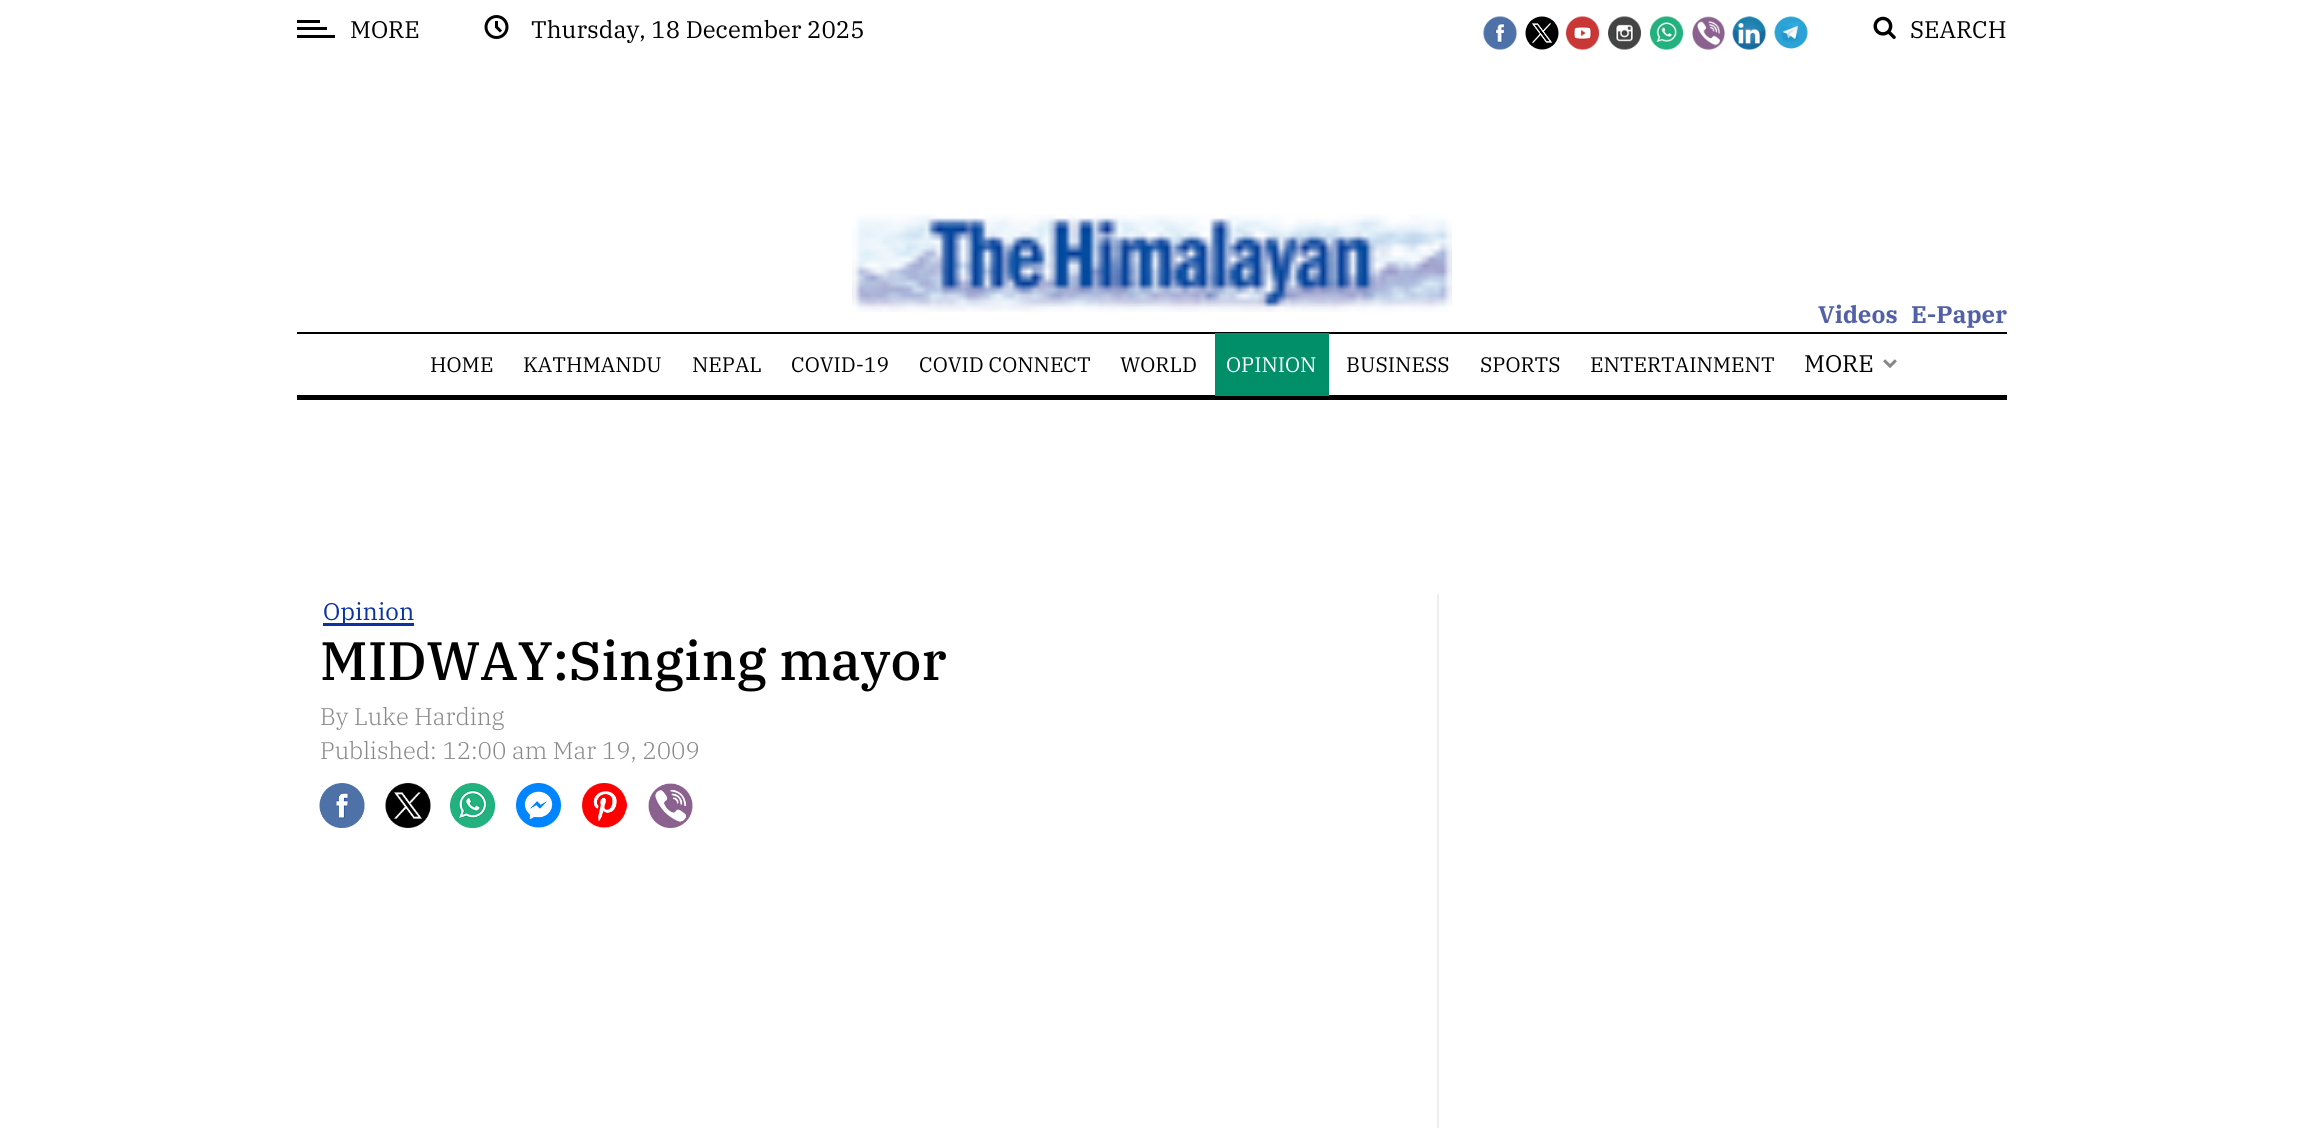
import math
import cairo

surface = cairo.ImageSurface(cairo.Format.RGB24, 2304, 1128)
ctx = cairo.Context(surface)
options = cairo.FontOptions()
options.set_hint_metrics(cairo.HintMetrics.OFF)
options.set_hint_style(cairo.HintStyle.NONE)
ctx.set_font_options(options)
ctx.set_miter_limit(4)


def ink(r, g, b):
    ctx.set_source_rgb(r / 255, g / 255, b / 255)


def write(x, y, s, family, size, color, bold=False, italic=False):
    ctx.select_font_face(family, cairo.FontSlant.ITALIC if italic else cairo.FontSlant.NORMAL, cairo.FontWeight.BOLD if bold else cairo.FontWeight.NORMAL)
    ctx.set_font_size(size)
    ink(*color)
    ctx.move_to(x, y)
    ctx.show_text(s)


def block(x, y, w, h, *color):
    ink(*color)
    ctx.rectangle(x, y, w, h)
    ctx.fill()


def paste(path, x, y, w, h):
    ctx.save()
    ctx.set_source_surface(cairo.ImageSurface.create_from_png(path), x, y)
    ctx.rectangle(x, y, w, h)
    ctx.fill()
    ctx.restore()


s1 = dict(family="IBM Plex Serif", size=24, color=(0, 0, 0))
s2 = dict(family="IBM Plex Serif", size=24, color=(81, 96, 167), bold=True)
s3 = dict(family="IBM Plex Serif", size=21, color=(0, 0, 0))
s4 = dict(family="IBM Plex Serif", size=21, color=(255, 255, 255))
s5 = dict(family="IBM Plex Serif", size=24, color=(10, 50, 160))
s6 = dict(family="IBM Plex Serif Medium", size=54, color=(0, 0, 0))
s7 = dict(family="IBM Plex Serif Light", size=24, color=(136, 136, 136))

ink(255, 255, 255)
ctx.paint()
block(297, 35, 38, 3, 0, 0, 0)
block(297, 20, 23, 3, 0, 0, 0)
block(297, 27, 30, 3, 0, 0, 0)
write(350, 38, "MORE", **s1)
paste("pic1.png", 484, 15, 25, 24)
write(531, 38, "Thursday, 18 December 2025", **s1)
paste("pic2.png", 1483, 16, 34, 34)
paste("pic3.png", 1525, 16, 34, 34)
paste("pic4.png", 1566, 16, 33, 34)
paste("pic5.png", 1608, 16, 33, 34)
paste("pic6.png", 1650, 16, 33, 34)
paste("pic7.png", 1692, 16, 33, 34)
paste("pic8.png", 1732, 16, 34, 34)
paste("pic9.png", 1774, 16, 34, 33)
paste("pic10.png", 1873, 16, 23, 23)
write(1910, 38, "SEARCH", **s1)
block(297, 332, 1710, 2, 0, 0, 0)
paste("pic11.png", 852, 214, 600, 98)
write(1818, 323, "Videos", **s2)
write(1911, 323, "E-Paper", **s2)
block(297, 395, 1710, 5, 0, 0, 0)
write(430, 372, "HOME", **s3)
write(523, 372, "KATHMANDU", **s3)
write(692, 372, "NEPAL", **s3)
write(791, 372, "COVID-19", **s3)
write(919, 372, "COVID CONNECT", **s3)
write(1120, 372, "WORLD", **s3)
block(1215, 333, 114, 63, 0, 143, 105)
write(1226, 372, "OPINION", **s4)
write(1346, 372, "BUSINESS", **s3)
write(1480, 372, "SPORTS", **s3)
write(1590, 372, "ENTERTAINMENT", **s3)
write(1804, 372, "MORE", **s1)
paste("pic12.png", 1883, 359, 14, 9)
block(323, 623, 91, 3, 10, 50, 160)
write(323, 620, "Opinion", **s5)
write(320, 680, "MIDWAY:Singing mayor", **s6)
write(320, 725, "By Luke Harding", **s7)
write(320, 759, "Published: 12:00 am Mar 19, 2009", **s7)
paste("pic13.png", 319, 783, 46, 45)
paste("pic14.png", 385, 783, 46, 45)
paste("pic15.png", 450, 783, 45, 45)
paste("pic16.png", 516, 783, 45, 45)
paste("pic17.png", 582, 783, 45, 45)
paste("pic18.png", 648, 783, 45, 45)
block(1437, 594, 2, 534, 238, 238, 238)
surface.write_to_png("screenshot.png")
